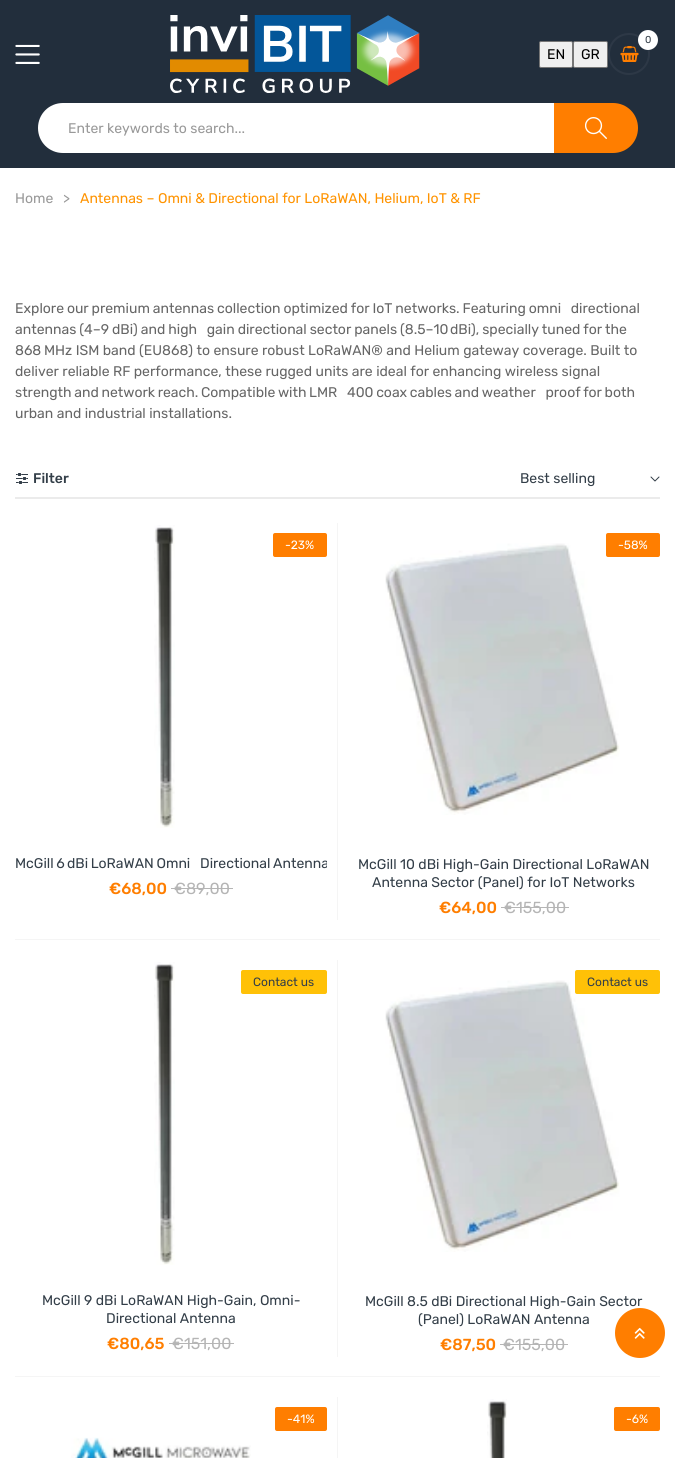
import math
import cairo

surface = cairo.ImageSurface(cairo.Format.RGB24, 675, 1458)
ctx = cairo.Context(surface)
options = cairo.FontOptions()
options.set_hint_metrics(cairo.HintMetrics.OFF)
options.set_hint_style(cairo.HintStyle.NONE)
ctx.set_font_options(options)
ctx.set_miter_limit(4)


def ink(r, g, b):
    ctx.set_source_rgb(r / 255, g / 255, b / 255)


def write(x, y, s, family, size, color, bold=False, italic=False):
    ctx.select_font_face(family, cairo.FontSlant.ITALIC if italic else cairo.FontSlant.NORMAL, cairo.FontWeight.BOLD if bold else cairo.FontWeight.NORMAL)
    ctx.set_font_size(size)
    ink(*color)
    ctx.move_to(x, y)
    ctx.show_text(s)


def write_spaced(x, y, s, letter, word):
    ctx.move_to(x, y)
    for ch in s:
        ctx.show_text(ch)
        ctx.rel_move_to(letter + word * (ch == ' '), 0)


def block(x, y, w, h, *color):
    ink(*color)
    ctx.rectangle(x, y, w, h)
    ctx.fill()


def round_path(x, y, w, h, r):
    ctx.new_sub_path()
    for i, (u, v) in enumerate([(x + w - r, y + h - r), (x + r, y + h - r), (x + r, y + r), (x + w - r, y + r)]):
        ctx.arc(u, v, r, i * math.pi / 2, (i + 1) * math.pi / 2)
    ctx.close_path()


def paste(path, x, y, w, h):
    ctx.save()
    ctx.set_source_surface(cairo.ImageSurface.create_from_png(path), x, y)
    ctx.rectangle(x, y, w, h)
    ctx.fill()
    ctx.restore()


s1 = dict(family="Rubik", size=10, color=(51, 62, 72))
s2 = dict(family="Rubik", size=14, color=(0, 0, 0))
s3 = dict(family="Rubik", size=14, color=(153, 153, 153))
s4 = dict(family="Rubik", size=14, color=(255, 147, 0))
s5 = dict(family="Rubik", size=14, color=(102, 102, 102))
s6 = dict(family="Rubik Medium", size=14, color=(51, 62, 72))
s7 = dict(family="Rubik", size=14, color=(51, 62, 72))
s8 = dict(family="Rubik", size=12, color=(255, 255, 255))
s9 = dict(family="Rubik Medium", size=16, color=(255, 126, 0))
s10 = dict(family="Rubik", size=16, color=(181, 181, 181))
s11 = dict(family="Rubik", size=12, color=(51, 62, 72))

ink(255, 255, 255)
ctx.paint()
block(0, 0, 675, 168, 34, 46, 60)
paste("pic1.png", 15, 44, 25, 20)
paste("pic2.png", 170, 15, 250, 78)
ctx.arc(629, 54, 20, 0, 2 * math.pi)
ink(45, 56, 70)
ctx.stroke()
paste("pic3.png", 620, 46, 19, 16)
ink(255, 255, 255)
ctx.arc(648, 40, 10, 0, 2 * math.pi)
ctx.fill()
write(645, 43, "0", **s1)
ink(239, 239, 239)
round_path(539.5, 41.5, 33, 26, 1.5)
ctx.fill_preserve()
ink(118, 118, 118)
ctx.set_line_width(1)
ctx.stroke()
write(547, 59, "EN", **s2)
ink(239, 239, 239)
round_path(573.5, 41.5, 34, 26, 1.5)
ctx.fill_preserve()
ink(118, 118, 118)
ctx.stroke()
write(581, 59, "GR", **s2)
ink(255, 255, 255)
ctx.new_path()
ctx.move_to(63, 103)
ctx.line_to(555, 103)
ctx.line_to(555, 153)
ctx.line_to(63, 153)
ctx.curve_to(49, 153, 38, 142, 38, 128)
ctx.curve_to(38, 114, 49, 103, 63, 103)
ctx.close_path()
ctx.fill()
write(68, 133, "Enter keywords to search...", **s3)
ink(255, 126, 0)
ctx.new_path()
ctx.move_to(554, 103)
ctx.line_to(613, 103)
ctx.curve_to(627, 103, 638, 114, 638, 128)
ctx.curve_to(638, 142, 627, 153, 613, 153)
ctx.line_to(554, 153)
ctx.close_path()
ctx.fill()
paste("pic4.png", 585, 117, 22, 22)
write(15, 203, "Home", **s3)
write(63, 203, ">", **s3)
write(80, 203, "Antennas – Omni & Directional for LoRaWAN, Helium, IoT & RF", **s4)
ink(102, 102, 102)
write_spaced(15, 313, "Explore our premium antennas collection optimized for IoT networks. Featuring omni‑directional", 0, -0.5)
write_spaced(15, 334, "antennas (4–9", 0, -0.5)
write_spaced(112, 334, "dBi) and high‑gain directional sector panels (8.5–10", 0, -0.5)
write_spaced(450, 334, "dBi), specially tuned for the", 0, -0.5)
write(15, 355, "868", **s5)
write(44, 355, "MHz ISM band (EU868) to ensure robust LoRaWAN® and Helium gateway coverage. Built to", **s5)
write(15, 376, "deliver reliable RF performance, these rugged units are ideal for enhancing wireless signal", **s5)
write_spaced(15, 397, "strength and network reach. Compatible with LMR‑400 coax cables and weather‑proof for both", 0, -0.8)
write(15, 418, "urban and industrial installations.", **s5)
block(15, 497, 645, 2, 235, 235, 235)
paste("pic5.png", 16, 473, 12, 11)
write(33, 483, "Filter", **s6)
write(520, 483, "Best selling", **s7)
paste("pic6.png", 650, 476, 10, 6)
block(337, 523, 1, 397, 245, 245, 245)
paste("pic7.png", 154, 525, 21, 303)
ink(255, 126, 0)
round_path(273, 533, 54, 24, 2)
ctx.fill()
write(285, 549, "-23%", **s8)
ctx.set_font_size(14)
ink(51, 62, 72)
write_spaced(15, 868, "McGill 6", 0, -0.8)
ctx.save()
ctx.rectangle(15, 855, 312, 18)
ctx.clip()
write_spaced(67, 868, "dBi LoRaWAN Omni‑Directional Antenna", 0, -0.8)
ctx.restore()
write(109, 894, "€68,00", **s9)
write(174, 894, "€89,00", **s10)
block(171, 888, 62, 1, 181, 181, 181)
block(15, 939, 645, 1, 245, 245, 245)
paste("pic8.png", 385, 543, 235, 272)
ink(255, 126, 0)
round_path(606, 533, 54, 24, 2)
ctx.fill()
write(618, 549, "-58%", **s8)
write(358, 869, "McGill 10 dBi High-Gain Directional LoRaWAN", **s7)
write(372, 887, "Antenna Sector (Panel) for IoT Networks", **s7)
write(439, 913, "€64,00", **s9)
write(504, 913, "€155,00", **s10)
block(501, 907, 68, 1, 181, 181, 181)
block(337, 960, 1, 397, 245, 245, 245)
paste("pic7.png", 154, 962, 21, 303)
ink(255, 193, 7)
round_path(241, 970, 86, 24, 2)
ctx.fill()
write(253, 986, "Contact us", **s11)
write(42, 1305, "McGill 9 dBi LoRaWAN High-Gain, Omni-", **s7)
write(106, 1323, "Directional Antenna", **s7)
write(107, 1349, "€80,65", **s9)
write(172, 1349, "€151,00", **s10)
block(169, 1343, 65, 1, 181, 181, 181)
block(15, 1376, 645, 1, 245, 245, 245)
paste("pic8.png", 385, 980, 235, 272)
ink(255, 193, 7)
round_path(575, 970, 85, 24, 2)
ctx.fill()
write(587, 986, "Contact us", **s11)
write(365, 1306, "McGill 8.5 dBi Directional High-Gain Sector", **s7)
write(418, 1324, "(Panel) LoRaWAN Antenna", **s7)
write(440, 1350, "€87,50", **s9)
write(503, 1350, "€155,00", **s10)
block(500, 1344, 68, 1, 181, 181, 181)
block(337, 1397, 1, 61, 245, 245, 245)
ink(255, 126, 0)
round_path(275, 1407, 52, 24, 2)
ctx.fill()
write(287, 1423, "-41%", **s8)
paste("pic9.png", 71, 1437, 180, 21)
paste("pic10.png", 487, 1399, 20, 59)
ink(255, 126, 0)
round_path(614, 1407, 46, 24, 2)
ctx.fill()
write(626, 1423, "-6%", **s8)
ink(255, 126, 0)
ctx.new_path()
ctx.arc(640, 1333, 25, 0, 2 * math.pi)
ctx.fill()
paste("pic11.png", 634, 1327, 11, 12)
surface.write_to_png("screenshot.png")
